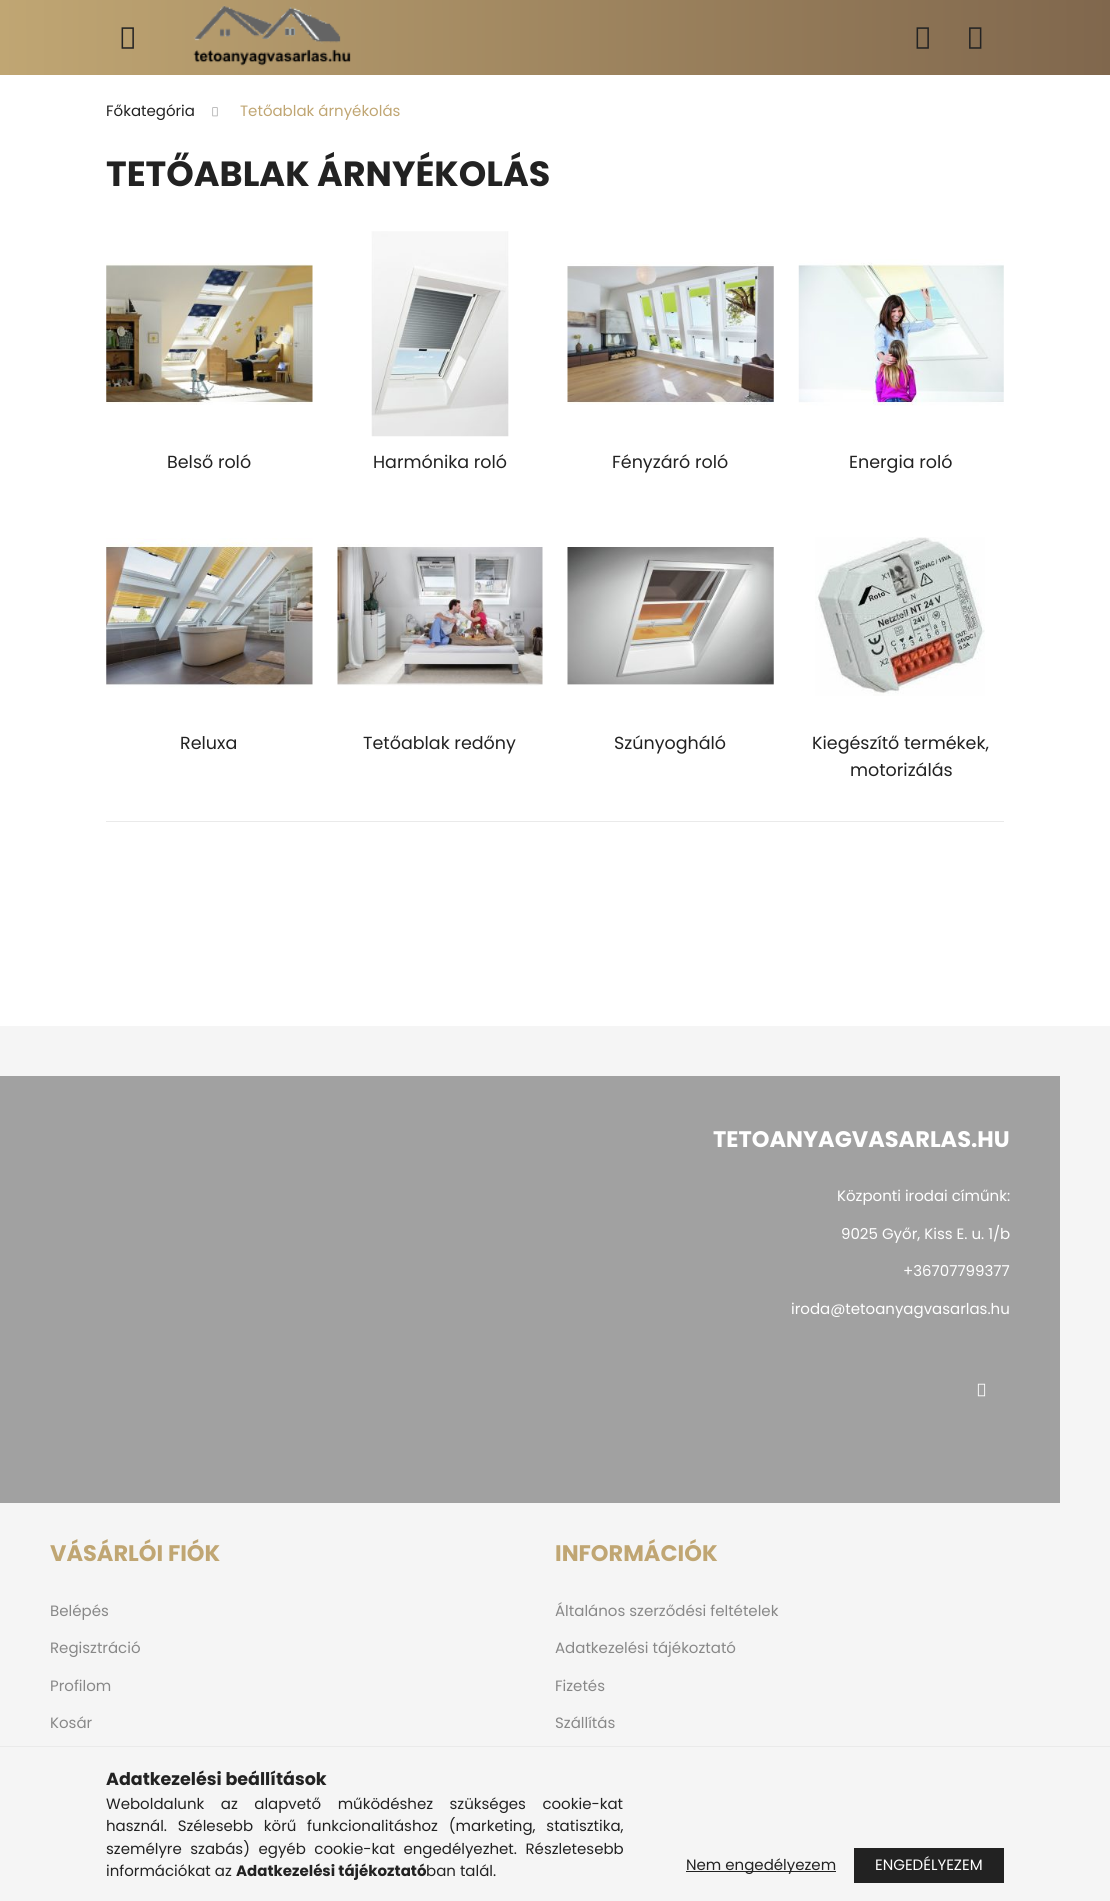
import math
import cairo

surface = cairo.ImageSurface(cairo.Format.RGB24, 1110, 1901)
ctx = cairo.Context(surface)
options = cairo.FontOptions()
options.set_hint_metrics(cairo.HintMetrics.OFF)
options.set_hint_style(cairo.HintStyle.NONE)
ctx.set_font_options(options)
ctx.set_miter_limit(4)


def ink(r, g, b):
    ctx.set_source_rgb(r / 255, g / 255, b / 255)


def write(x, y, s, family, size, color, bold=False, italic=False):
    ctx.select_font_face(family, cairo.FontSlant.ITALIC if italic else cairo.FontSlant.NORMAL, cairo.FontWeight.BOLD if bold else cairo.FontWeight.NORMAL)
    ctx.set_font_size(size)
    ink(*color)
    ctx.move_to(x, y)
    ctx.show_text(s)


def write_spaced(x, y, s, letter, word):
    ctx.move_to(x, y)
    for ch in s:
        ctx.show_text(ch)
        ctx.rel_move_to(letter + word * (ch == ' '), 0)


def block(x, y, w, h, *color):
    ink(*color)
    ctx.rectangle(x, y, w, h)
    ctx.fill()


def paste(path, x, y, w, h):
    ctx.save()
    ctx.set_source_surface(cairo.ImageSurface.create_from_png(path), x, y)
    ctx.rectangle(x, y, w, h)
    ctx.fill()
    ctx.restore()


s1 = dict(family="Poppins", size=15, color=(34, 34, 34))
s2 = dict(family="Poppins", size=15, color=(192, 166, 115))
s3 = dict(family="Poppins", size=35, color=(34, 34, 34), bold=True)
s4 = dict(family="Poppins", size=17.5, color=(34, 34, 34))
s5 = dict(family="Poppins", size=22.5, color=(255, 255, 255), bold=True)
s6 = dict(family="Poppins", size=15, color=(255, 255, 255))
s7 = dict(family="Poppins", size=22.5, color=(192, 166, 115), bold=True)
s8 = dict(family="Poppins", size=15, color=(136, 136, 136))
s9 = dict(family="Poppins", size=17.5, color=(34, 34, 34), bold=True)
s10 = dict(family="Poppins", size=15, color=(34, 34, 34), bold=True)

ink(255, 255, 255)
ctx.paint()
gradient = cairo.LinearGradient(0, 38, 1110, 37)
gradient.add_color_stop_rgba(0, 0.753, 0.651, 0.451, 1)
gradient.add_color_stop_rgba(1, 0.502, 0.404, 0.302, 1)
ctx.set_source(gradient)
ctx.rectangle(0, 0, 1110, 75)
ctx.fill()
paste("pic1.png", 121, 27, 13, 22)
paste("pic2.png", 193, 5, 158, 61)
paste("pic3.png", 916, 27, 13, 22)
paste("pic4.png", 969, 27, 13, 22)
write(106, 116, "Főkategória", **s1)
paste("pic5.png", 212, 107, 6, 10)
write(240, 116, "Tetőablak árnyékolás", **s2)
write(106, 186, "TETŐABLAK ÁRNYÉKOLÁS", **s3)
block(106, 821, 898, 1, 234, 234, 234)
paste("pic6.png", 106, 263, 207, 142)
write(167, 468, "Belső roló", **s4)
paste("pic7.png", 371, 231, 138, 206)
write(373, 468, "Harmónika roló", **s4)
paste("pic8.png", 567, 262, 207, 143)
write(612, 468, "Fényzáró roló", **s4)
paste("pic9.png", 798, 259, 206, 147)
write(849, 468, "Energia roló", **s4)
paste("pic10.png", 106, 538, 207, 150)
write(180, 749, "Reluxa", **s4)
paste("pic11.png", 337, 544, 206, 142)
write(363, 749, "Tetőablak redőny", **s4)
paste("pic12.png", 567, 547, 207, 138)
write(614, 749, "Szúnyogháló", **s4)
paste("pic13.png", 815, 537, 170, 159)
write(812, 749, "Kiegészítő termékek,", **s4)
write(850, 776, "motorizálás", **s4)
block(0, 1026, 1110, 720, 245, 245, 245)
block(0, 1076, 1060, 427, 161, 161, 161)
write(713, 1147, "TETOANYAGVASARLAS.HU", **s5)
write(837, 1201, "Központi irodai címűnk:", **s6)
write(841, 1239, "9025 Győr, Kiss E. u. 1/b", **s6)
write(903, 1276, "+36707799377", **s6)
write(791, 1314, "iroda@tetoanyagvasarlas.hu", **s6)
paste("pic14.png", 977, 1383, 9, 14)
write(50, 1561, "VÁSÁRLÓI FIÓK", **s7)
write(50, 1616, "Belépés", **s8)
write(50, 1653, "Regisztráció", **s8)
write(50, 1691, "Profilom", **s8)
write(50, 1728, "Kosár", **s8)
write(555, 1561, "INFORMÁCIÓK", **s7)
write(555, 1616, "Általános szerződési feltételek", **s8)
write(555, 1653, "Adatkezelési tájékoztató", **s8)
write(555, 1691, "Fizetés", **s8)
write(555, 1728, "Szállítás", **s8)
block(0, 1747, 1110, 154, 245, 245, 245)
block(0, 1746, 1110, 1, 234, 234, 234)
write(106, 1785, "Adatkezelési beállítások", **s9)
ctx.select_font_face("Poppins")
ctx.set_font_size(15)
write_spaced(106, 1809, "Weboldalunk az alapvető működéshez szükséges cookie-kat", 0, 12.5)
write_spaced(106, 1831, "használ. Szélesebb körű funkcionalitáshoz (marketing, statisztika,", 0, 6.75)
write_spaced(106, 1854, "személyre szabás) egyéb cookie-kat engedélyezhet. Részletesebb", 0, 4.5)
write(106, 1876, "információkat az", **s1)
write(236, 1876, "Adatkezelési tájékoztató", **s10)
write(426, 1876, "ban talál.", **s1)
block(686, 1871, 150, 1, 34, 34, 34)
write(686, 1870, "Nem engedélyezem", **s1)
gradient = cairo.LinearGradient(554, 1865, 1004, 1865)
gradient.add_color_stop_rgba(0, 0.753, 0.651, 0.451, 1)
gradient.add_color_stop_rgba(0.33, 0.502, 0.404, 0.302, 1)
gradient.add_color_stop_rgba(0.67, 0.133, 0.133, 0.133, 1)
gradient.add_color_stop_rgba(1, 0.133, 0.133, 0.133, 1)
ctx.set_source(gradient)
ctx.rectangle(854, 1848, 150, 35)
ctx.fill()
write(875, 1870, "ENGEDÉLYEZEM", **s6)
surface.write_to_png("screenshot.png")
